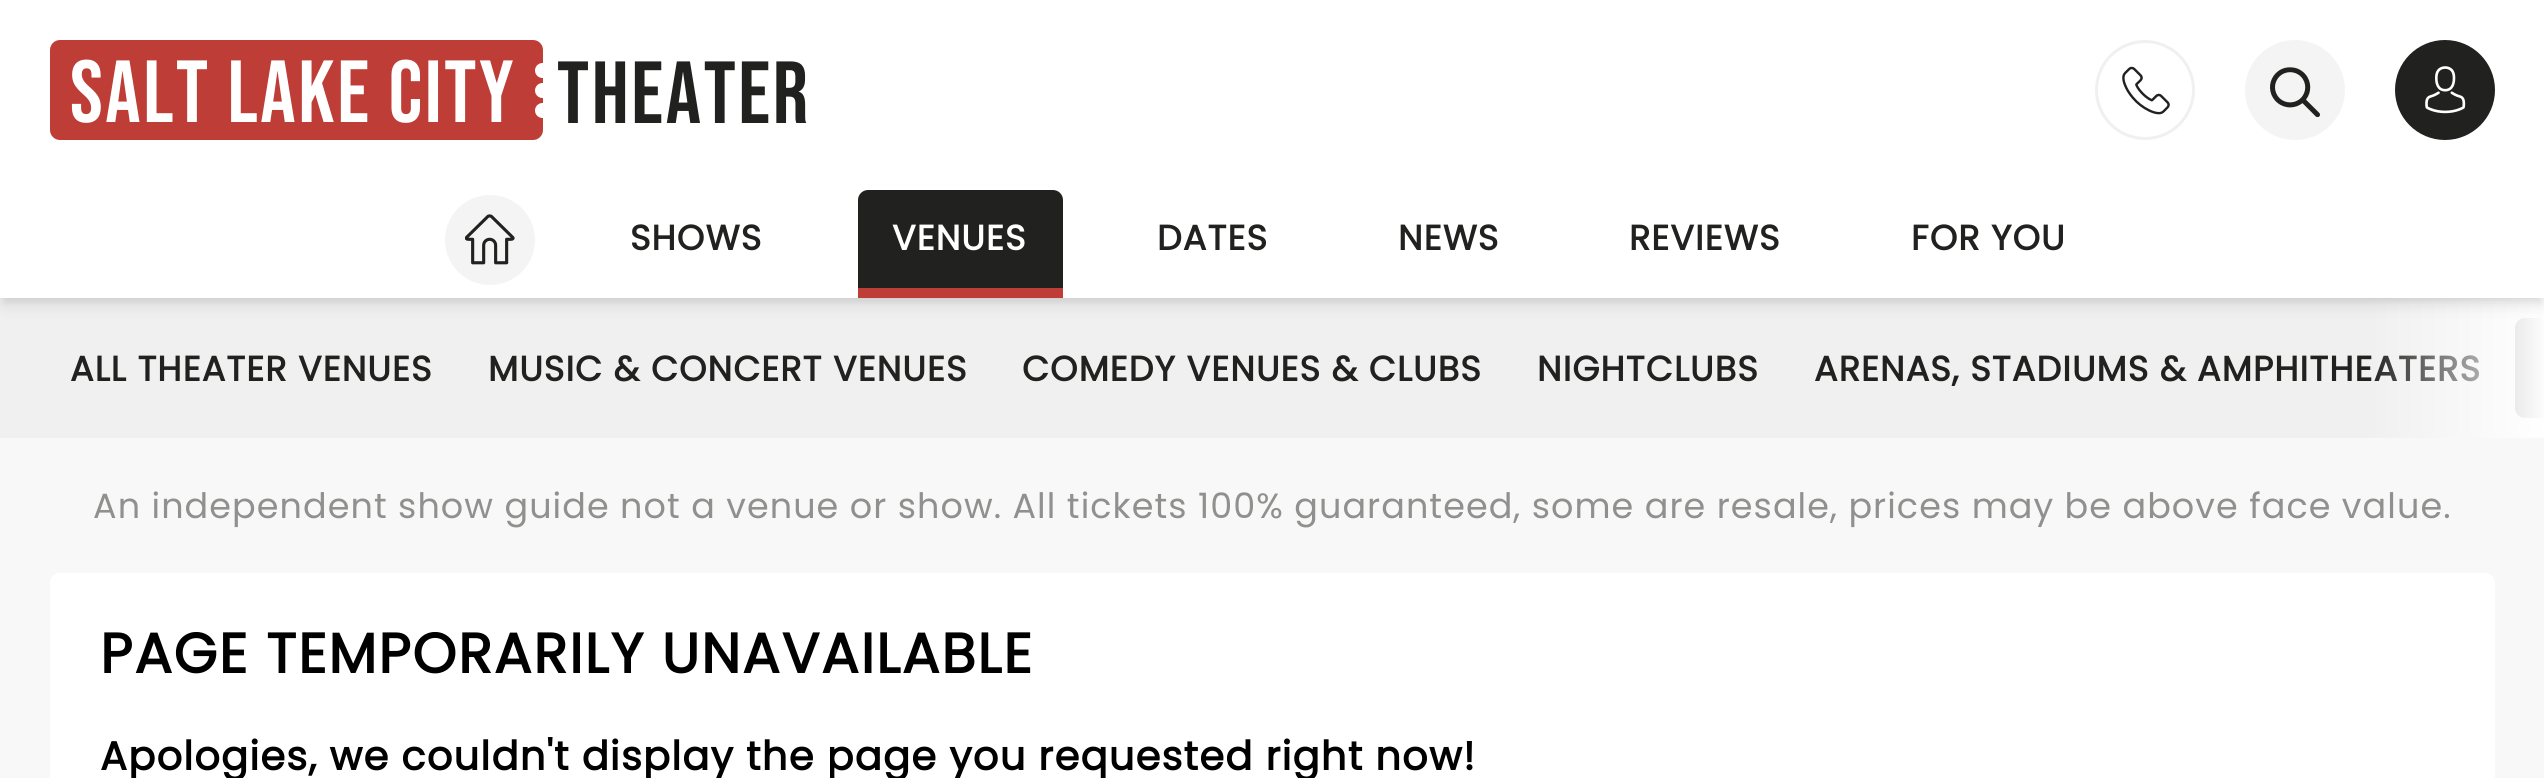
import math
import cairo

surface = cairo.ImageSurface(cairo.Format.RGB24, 2544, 778)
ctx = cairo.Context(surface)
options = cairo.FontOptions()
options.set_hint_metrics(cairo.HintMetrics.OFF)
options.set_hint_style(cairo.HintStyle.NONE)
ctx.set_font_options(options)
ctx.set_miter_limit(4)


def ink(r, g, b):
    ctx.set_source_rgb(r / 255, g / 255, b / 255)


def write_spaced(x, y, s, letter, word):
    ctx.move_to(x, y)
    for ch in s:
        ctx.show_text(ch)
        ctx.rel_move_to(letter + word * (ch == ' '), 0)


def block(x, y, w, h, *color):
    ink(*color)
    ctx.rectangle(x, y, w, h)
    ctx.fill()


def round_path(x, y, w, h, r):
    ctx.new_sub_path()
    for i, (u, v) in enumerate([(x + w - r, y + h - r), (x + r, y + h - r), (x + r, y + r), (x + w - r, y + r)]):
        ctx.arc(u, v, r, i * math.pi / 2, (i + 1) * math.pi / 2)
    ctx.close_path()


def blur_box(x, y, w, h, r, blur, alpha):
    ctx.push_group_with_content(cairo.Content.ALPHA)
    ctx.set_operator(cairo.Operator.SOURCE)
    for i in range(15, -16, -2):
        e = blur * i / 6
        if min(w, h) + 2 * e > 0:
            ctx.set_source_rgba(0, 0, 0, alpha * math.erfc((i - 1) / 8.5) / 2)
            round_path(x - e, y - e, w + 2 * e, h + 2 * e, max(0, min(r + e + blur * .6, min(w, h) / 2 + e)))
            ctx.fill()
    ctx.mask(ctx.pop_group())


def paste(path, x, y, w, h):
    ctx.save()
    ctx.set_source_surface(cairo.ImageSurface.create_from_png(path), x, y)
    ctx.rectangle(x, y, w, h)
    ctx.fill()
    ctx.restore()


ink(248, 248, 248)
ctx.paint()
block(0, 298, 2544, 140, 240, 240, 240)
ctx.select_font_face("Poppins", cairo.FontSlant.NORMAL, cairo.FontWeight.BOLD)
ctx.set_font_size(35)
ink(33, 33, 32)
write_spaced(1814, 381, "ARENAS, STADIUMS & AMPHITHEATERS", 1.05, 0)
ink(144, 144, 143)
ctx.new_path()
ctx.move_to(2525, 318)
ctx.line_to(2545, 318)
ctx.line_to(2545, 418)
ctx.line_to(2525, 418)
ctx.curve_to(2519.5, 418, 2515, 413.5, 2515, 408)
ctx.line_to(2515, 328)
ctx.curve_to(2515, 322.5, 2519.5, 318, 2525, 318)
ctx.close_path()
ctx.fill()
gradient = cairo.LinearGradient(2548, 368, 2368, 368)
gradient.add_color_stop_rgba(0, 1, 1, 1, 1)
gradient.add_color_stop_rgba(1, 1, 1, 1, 0)
ctx.set_source(gradient)
ctx.rectangle(2375, 298, 169, 140)
ctx.fill()
ink(0, 0, 0)
blur_box(5, 150, 2535, 148, 0, 5, 0.1)
blur_box(3, 153, 2540, 152, 0, 7.5, 0.1)
block(0, 0, 2544, 298, 255, 255, 255)
ink(191, 61, 55)
round_path(50, 40, 493, 100, 10)
ctx.fill()
ctx.select_font_face("Bebas Neue")
ctx.set_font_size(88)
ink(255, 255, 255)
write_spaced(70, 122, "Salt Lake City", 2.6, 0)
ctx.new_path()
ctx.arc(542.5, 70.5, 7.5, 0, 2 * math.pi)
ctx.fill()
ctx.arc(542.5, 90.5, 7.5, 0, 2 * math.pi)
ctx.fill()
ctx.arc(542.5, 110.5, 7.5, 0, 2 * math.pi)
ctx.fill()
ink(33, 33, 32)
write_spaced(557, 123, "Theater", 2.6, 0)
ctx.new_path()
ctx.arc(2145, 90, 48.5, 0, 2 * math.pi)
ink(240, 240, 240)
ctx.set_line_width(3)
ctx.stroke()
paste("pic1.png", 2122, 66, 48, 49)
ink(244, 244, 244)
ctx.arc(2295, 90, 50, 0, 2 * math.pi)
ctx.fill()
paste("pic2.png", 2270, 67, 50, 51)
ink(33, 33, 32)
ctx.arc(2445, 90, 50, 0, 2 * math.pi)
ctx.fill()
paste("pic3.png", 2425, 66, 41, 48)
ink(244, 244, 244)
ctx.arc(490, 240, 45, 0, 2 * math.pi)
ctx.fill()
paste("pic4.png", 465, 214, 50, 51)
ctx.select_font_face("Poppins", cairo.FontSlant.NORMAL, cairo.FontWeight.BOLD)
ctx.set_font_size(35)
ink(33, 33, 32)
write_spaced(630, 250, "SHOWS", 1.05, 0)
ctx.new_path()
ctx.move_to(868, 190)
ctx.line_to(1053, 190)
ctx.curve_to(1058.5, 190, 1063, 194.5, 1063, 200)
ctx.line_to(1063, 288)
ctx.line_to(858, 288)
ctx.line_to(858, 200)
ctx.curve_to(858, 194.5, 862.5, 190, 868, 190)
ctx.close_path()
ctx.fill()
block(858, 288, 205, 10, 191, 61, 55)
ink(255, 255, 255)
write_spaced(892, 250, "VENUES", 1.05, 0)
ink(33, 33, 32)
write_spaced(1157, 250, "DATES", 1.05, 0)
write_spaced(1398, 250, "NEWS", 1.05, 0)
write_spaced(1629, 250, "REVIEWS", 1.05, 0)
write_spaced(1911, 250, "FOR YOU", 1.05, 0)
write_spaced(70, 381, "ALL THEATER VENUES", 1.05, 0)
write_spaced(488, 381, "MUSIC & CONCERT VENUES", 1.05, 0)
write_spaced(1022, 381, "COMEDY VENUES & CLUBS", 1.05, 0)
write_spaced(1537, 381, "NIGHTCLUBS", 1.05, 0)
ctx.select_font_face("Poppins")
ink(144, 144, 143)
write_spaced(93, 518, "An independent show guide not a venue or show. All tickets 100% guaranteed, some are resale, prices may be above face value.", 1.05, 0)
ink(255, 255, 255)
round_path(50, 573, 2445, 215, 10)
ctx.fill()
ctx.select_font_face("Poppins", cairo.FontSlant.NORMAL, cairo.FontWeight.BOLD)
ctx.set_font_size(56)
ink(0, 0, 0)
write_spaced(100, 673, "PAGE TEMPORARILY UNAVAILABLE", 1.7, 0)
ctx.set_font_size(40)
write_spaced(100, 770, "Apologies, we couldn't display the page you requested right now!", 1.2, 0)
surface.write_to_png("screenshot.png")
